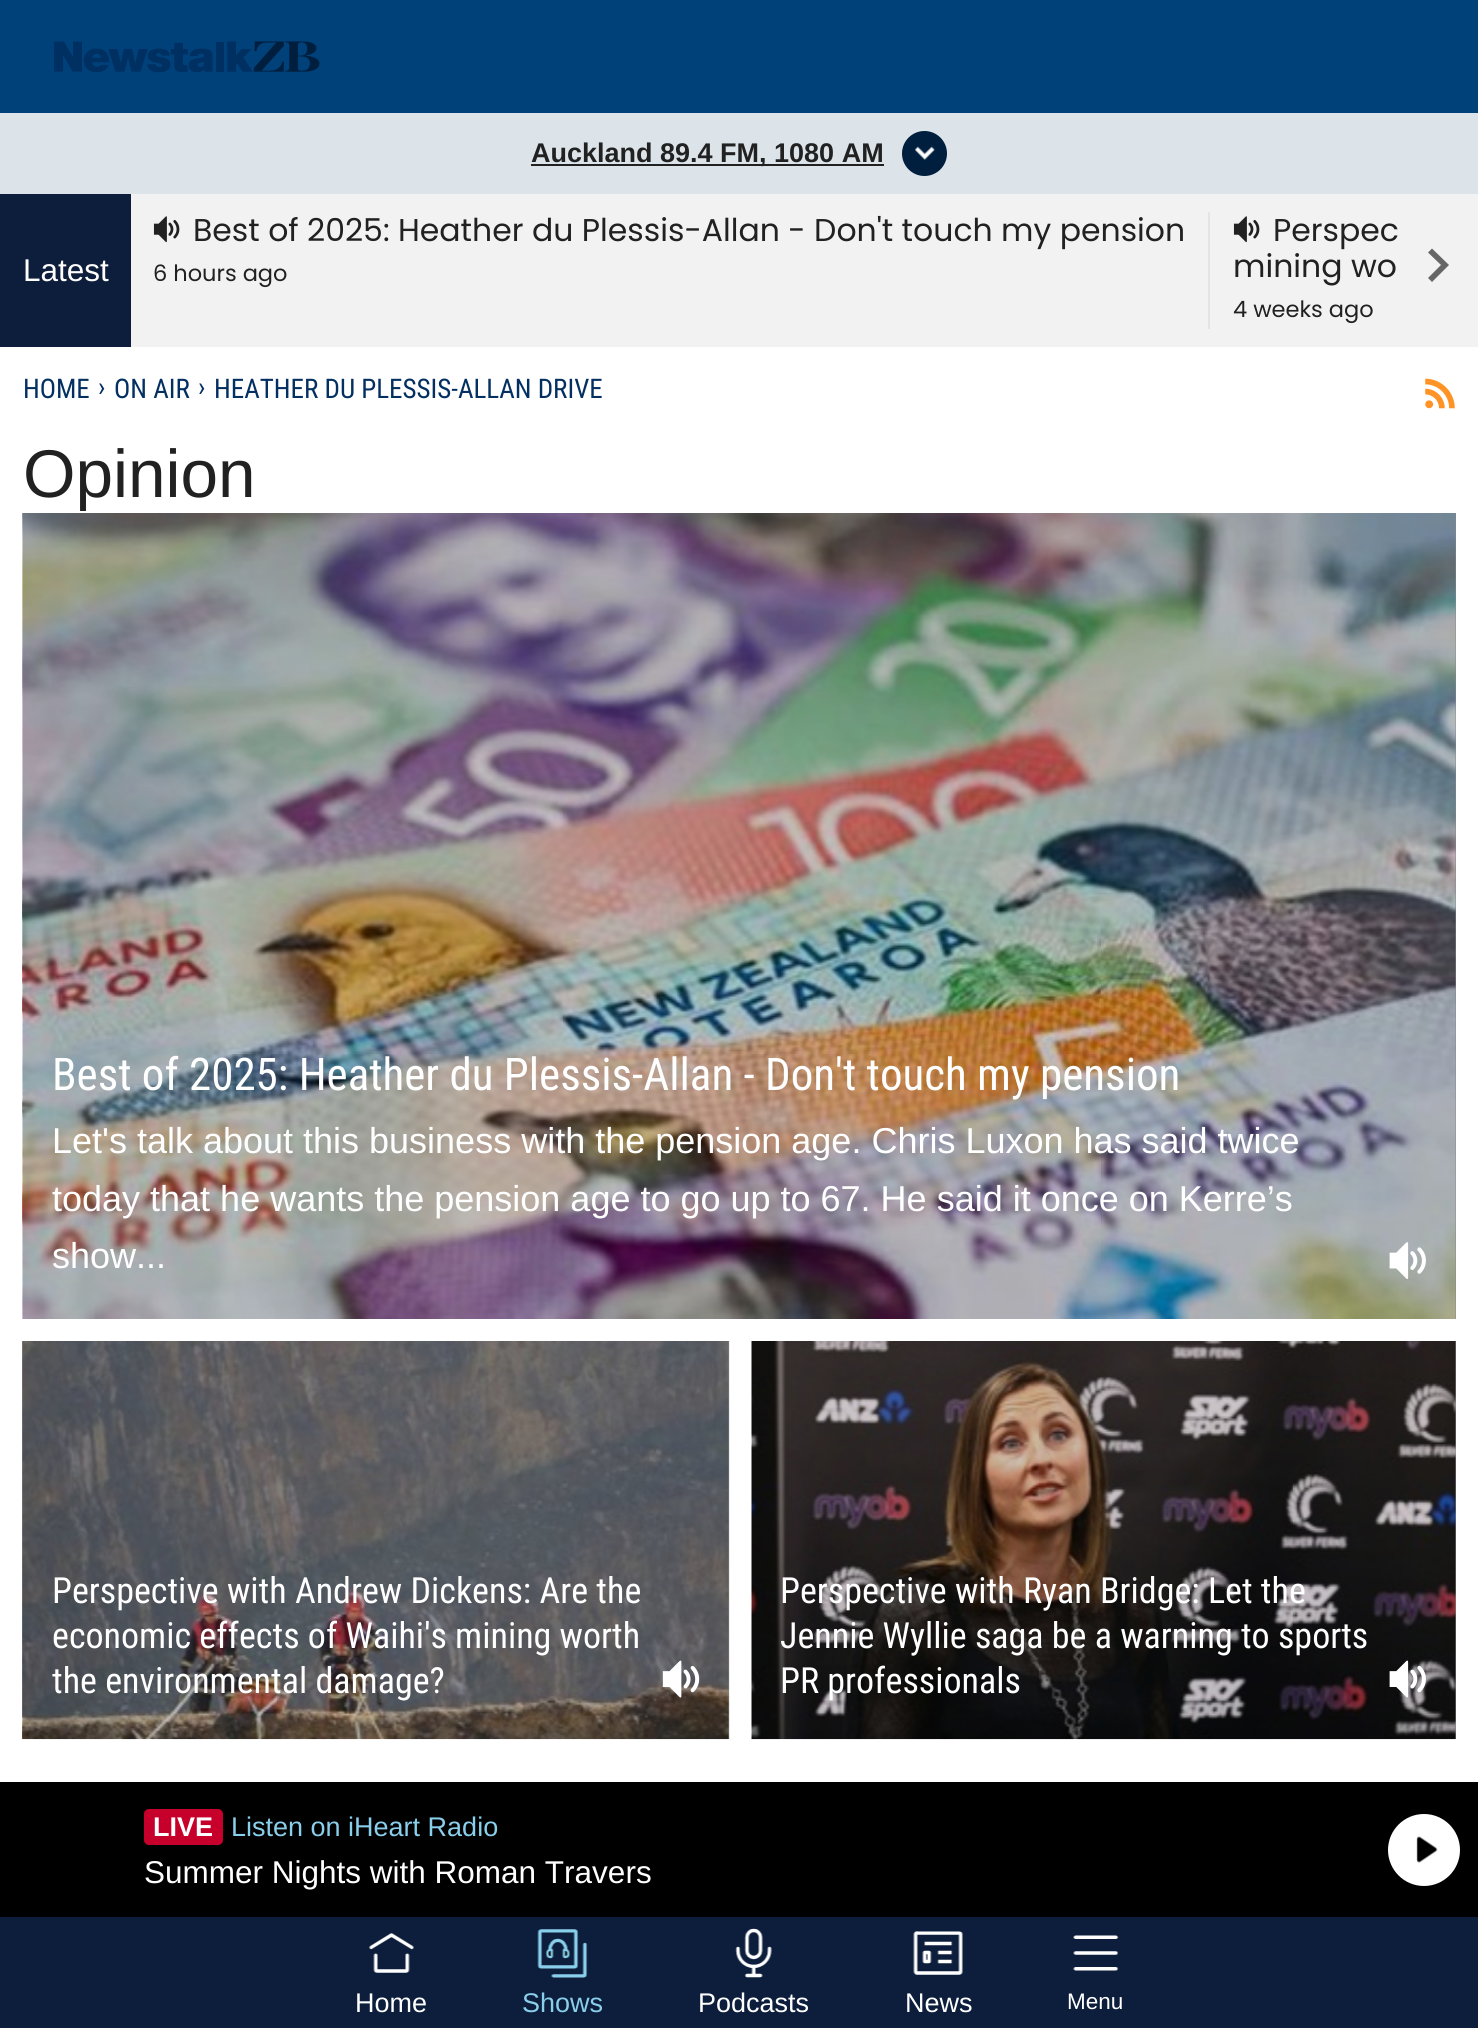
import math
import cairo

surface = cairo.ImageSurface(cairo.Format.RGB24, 1478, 2028)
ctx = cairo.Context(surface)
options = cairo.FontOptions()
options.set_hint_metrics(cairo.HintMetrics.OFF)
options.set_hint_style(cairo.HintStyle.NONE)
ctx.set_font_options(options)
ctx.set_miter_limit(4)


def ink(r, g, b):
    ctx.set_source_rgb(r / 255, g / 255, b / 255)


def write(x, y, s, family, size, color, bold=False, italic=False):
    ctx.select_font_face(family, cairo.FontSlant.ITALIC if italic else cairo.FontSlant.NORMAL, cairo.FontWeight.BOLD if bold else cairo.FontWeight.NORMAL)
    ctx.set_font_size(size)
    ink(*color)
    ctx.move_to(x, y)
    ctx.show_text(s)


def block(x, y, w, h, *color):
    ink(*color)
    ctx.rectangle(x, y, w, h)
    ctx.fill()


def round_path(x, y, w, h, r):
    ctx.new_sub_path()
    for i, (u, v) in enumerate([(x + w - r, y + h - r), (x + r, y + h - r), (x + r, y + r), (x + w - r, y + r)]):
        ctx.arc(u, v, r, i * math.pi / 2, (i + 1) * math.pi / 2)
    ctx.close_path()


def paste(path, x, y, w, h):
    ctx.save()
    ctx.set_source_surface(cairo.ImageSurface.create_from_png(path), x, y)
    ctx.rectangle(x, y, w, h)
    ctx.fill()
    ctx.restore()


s1 = dict(family="Liberation Sans", size=27, color=(33, 33, 33), bold=True)
s2 = dict(family="Liberation Sans", size=31.5, color=(255, 255, 255))
s3 = dict(family="Poppins", size=31.5, color=(33, 33, 33))
s4 = dict(family="Poppins", size=22.5, color=(33, 33, 33))
s5 = dict(family="Roboto Condensed", size=27, color=(3, 47, 97))
s6 = dict(family="Liberation Sans", size=67.5, color=(33, 33, 33))
s7 = dict(family="Roboto Condensed", size=45, color=(255, 255, 255))
s8 = dict(family="Liberation Sans", size=36, color=(255, 255, 255))
s9 = dict(family="Roboto Condensed", size=36, color=(255, 255, 255))
s10 = dict(family="Liberation Sans", size=27, color=(255, 255, 255), bold=True)
s11 = dict(family="Liberation Sans", size=27, color=(137, 207, 235))
s12 = dict(family="Liberation Sans", size=27, color=(255, 255, 255))
s13 = dict(family="Liberation Sans", size=22.5, color=(255, 255, 255))

ink(12, 30, 59)
ctx.paint()
block(0, 0, 1478, 113, 0, 65, 122)
paste("pic1.png", 54, 41, 266, 32)
block(0, 113, 1478, 81, 221, 228, 233)
block(531, 164, 353, 2, 33, 33, 33)
write(531, 162, "Auckland 89.4 FM, 1080 AM", **s1)
ink(0, 30, 61)
ctx.new_path()
ctx.arc(924.5, 153.5, 22.5, 0, 2 * math.pi)
ctx.fill()
paste("pic2.png", 915, 146, 20, 14)
write(23, 281, "Latest", **s2)
block(131, 194, 1347, 153, 242, 242, 242)
block(1208, 212, 2, 117, 225, 229, 229)
paste("pic3.png", 153, 216, 27, 27)
write(193, 241, "Best of 2025: Heather du Plessis-Allan - Don't touch my pension", **s3)
write(153, 281, "6 hours ago", **s4)
paste("pic3.png", 1233, 216, 27, 27)
write(1273, 241, "Perspec", **s3)
write(1233, 277, "mining wo", **s3)
write(1233, 317, "4 weeks ago", **s4)
ink(102, 102, 102)
ctx.new_path()
ctx.move_to(1428, 278)
ctx.line_to(1441, 265)
ctx.line_to(1428, 252.5)
ctx.line_to(1432, 248.5)
ctx.line_to(1449, 265)
ctx.line_to(1432, 282)
ctx.close_path()
ctx.fill()
block(0, 347, 1478, 1435, 255, 255, 255)
write(23, 398, "HOME", **s5)
write(98, 396, "›", **s5)
write(114, 398, "ON AIR", **s5)
write(198, 396, "›", **s5)
write(214, 398, "HEATHER DU PLESSIS-ALLAN DRIVE", **s5)
paste("pic4.png", 1425, 378, 30, 31)
write(23, 497, "Opinion", **s6)
block(1455, 513, 1, 806, 136, 136, 136)
paste("pic5.png", 22, 513, 1434, 806)
write(52, 1090, "Best of 2025: Heather du Plessis-Allan - Don't touch my pension", **s7)
write(52, 1153, "Let's talk about this business with the pension age. Chris Luxon has said twice", **s8)
write(52, 1211, "today that he wants the pension age to go up to 67. He said it once on Kerre’s", **s8)
write(52, 1268, "show...", **s8)
paste("pic6.png", 1389, 1242, 37, 37)
block(728, 1341, 1, 398, 136, 136, 136)
paste("pic7.png", 22, 1341, 708, 399)
write(52, 1603, "Perspective with Andrew Dickens: Are the", **s9)
write(52, 1648, "economic effects of Waihi's mining worth", **s9)
write(52, 1693, "the environmental damage?", **s9)
paste("pic8.png", 662, 1660, 38, 38)
block(1455, 1341, 1, 398, 136, 136, 136)
paste("pic9.png", 751, 1341, 705, 399)
write(780, 1603, "Perspective with Ryan Bridge: Let the", **s9)
write(780, 1648, "Jennie Wyllie saga be a warning to sports", **s9)
write(780, 1693, "PR professionals", **s9)
paste("pic10.png", 1389, 1660, 37, 38)
block(0, 1782, 1478, 135, 0, 0, 0)
ink(199, 0, 43)
round_path(144, 1809, 79, 36, 5)
ctx.fill()
write(153, 1836, "LIVE", **s10)
write(231, 1836, "Listen on iHeart Radio", **s11)
write(144, 1883, "Summer Nights with Roman Travers", **s2)
ctx.new_path()
ctx.arc(1424, 1850, 36, 0, 2 * math.pi)
ctx.fill()
paste("pic11.png", 1416, 1836, 22, 27)
paste("pic12.png", 369, 1933, 45, 40)
write(355, 2012, "Home", **s12)
paste("pic13.png", 537, 1929, 51, 49)
write(522, 2012, "Shows", **s11)
paste("pic14.png", 735, 1928, 37, 50)
write(698, 2012, "Podcasts", **s12)
paste("pic15.png", 913, 1931, 50, 44)
write(905, 2012, "News", **s12)
paste("pic16.png", 1073, 1935, 46, 36)
write(1067, 2009, "Menu", **s13)
surface.write_to_png("screenshot.png")
